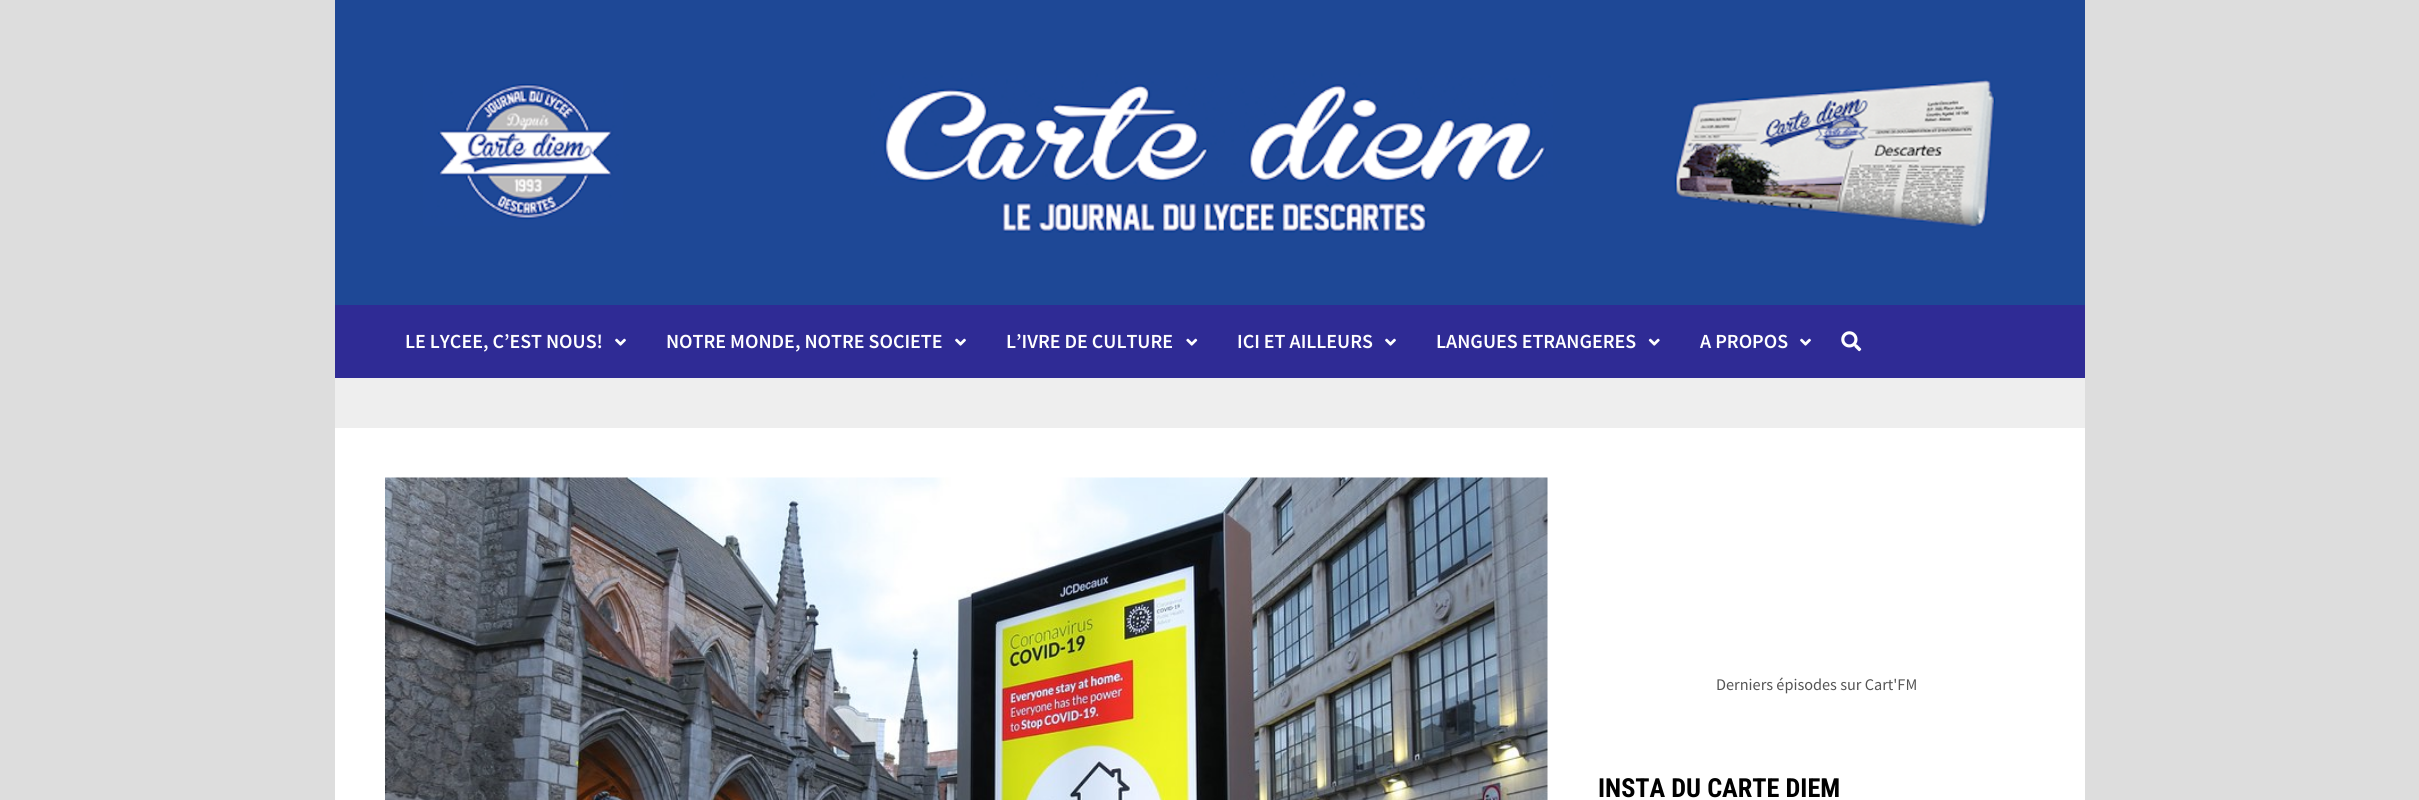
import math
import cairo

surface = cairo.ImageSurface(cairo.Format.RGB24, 2419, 800)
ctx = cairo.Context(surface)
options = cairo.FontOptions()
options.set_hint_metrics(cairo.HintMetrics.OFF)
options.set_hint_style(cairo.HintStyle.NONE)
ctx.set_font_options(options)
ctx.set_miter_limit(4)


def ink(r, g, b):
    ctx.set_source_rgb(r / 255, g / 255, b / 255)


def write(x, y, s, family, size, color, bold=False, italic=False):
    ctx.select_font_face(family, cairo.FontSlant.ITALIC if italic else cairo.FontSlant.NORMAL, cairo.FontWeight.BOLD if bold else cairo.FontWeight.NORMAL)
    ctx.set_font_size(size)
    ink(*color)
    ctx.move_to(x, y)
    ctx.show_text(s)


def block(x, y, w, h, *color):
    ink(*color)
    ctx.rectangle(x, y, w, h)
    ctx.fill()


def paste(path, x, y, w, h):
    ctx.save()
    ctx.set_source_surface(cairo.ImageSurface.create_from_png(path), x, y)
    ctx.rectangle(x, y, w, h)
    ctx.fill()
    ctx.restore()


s1 = dict(family="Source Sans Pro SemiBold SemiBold", size=20, color=(255, 255, 255))
s2 = dict(family="Source Sans Pro", size=16.25, color=(85, 85, 85))
s3 = dict(family="Roboto Condensed", size=26.25, color=(0, 0, 0), bold=True)

ink(221, 221, 221)
ctx.paint()
block(335, 428, 1750, 372, 255, 255, 255)
paste("pic1.png", 335, 0, 1750, 305)
block(335, 305, 1750, 73, 47, 43, 149)
write(405, 348, "LE LYCEE, C’EST NOUS!", **s1)
paste("pic2.png", 615, 338, 11, 8)
write(666, 348, "NOTRE MONDE, NOTRE SOCIETE", **s1)
paste("pic2.png", 955, 338, 11, 8)
write(1006, 348, "L’IVRE DE CULTURE", **s1)
paste("pic3.png", 1186, 338, 12, 8)
write(1237, 348, "ICI ET AILLEURS", **s1)
paste("pic2.png", 1385, 338, 11, 8)
write(1436, 348, "LANGUES ETRANGERES", **s1)
paste("pic4.png", 1648, 338, 12, 8)
write(1700, 348, "A PROPOS", **s1)
paste("pic2.png", 1800, 338, 11, 8)
paste("pic5.png", 1841, 331, 21, 21)
block(335, 378, 1750, 50, 238, 238, 238)
paste("pic6.png", 385, 477, 1163, 323)
write(1716, 690, "Derniers épisodes sur Cart'FM", **s2)
write(1598, 797, "INSTA DU CARTE DIEM", **s3)
surface.write_to_png("screenshot.png")
